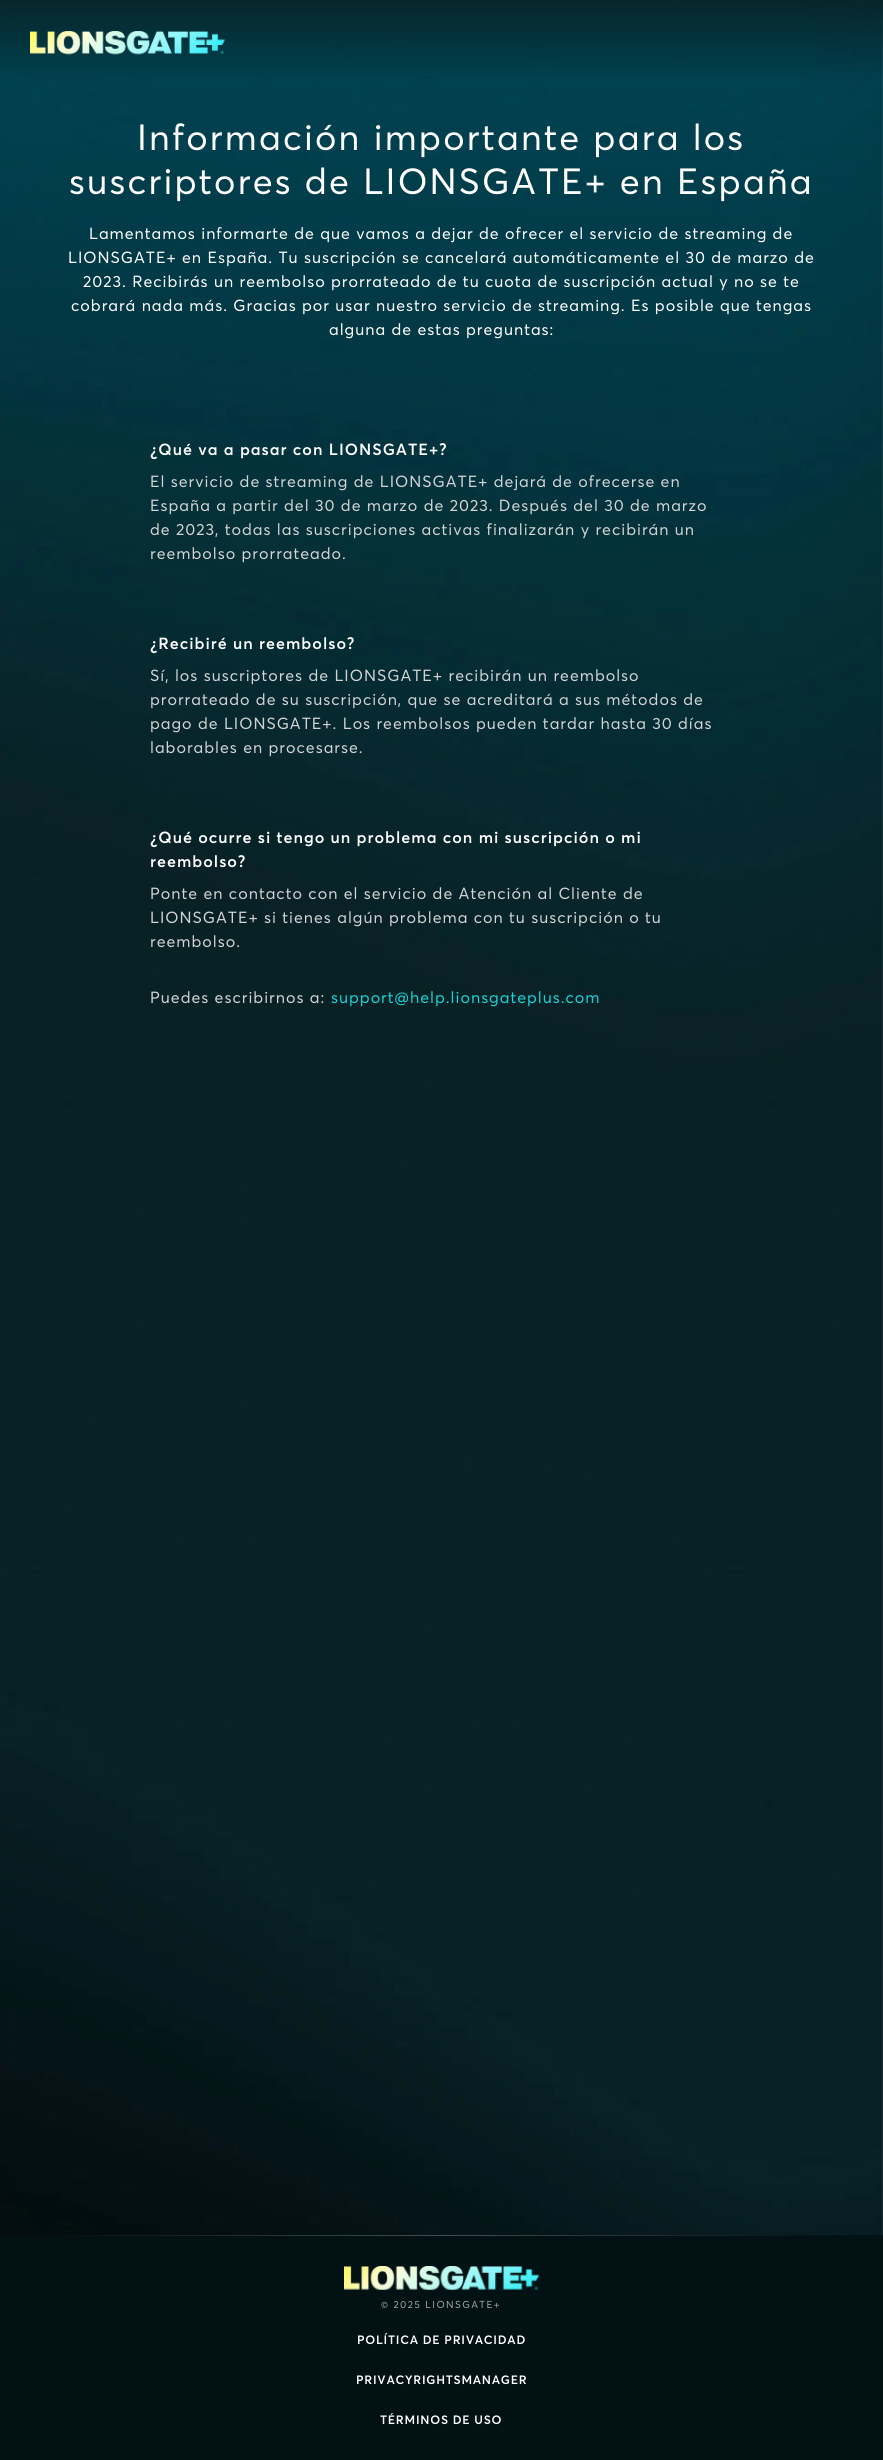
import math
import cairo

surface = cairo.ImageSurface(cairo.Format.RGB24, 883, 2460)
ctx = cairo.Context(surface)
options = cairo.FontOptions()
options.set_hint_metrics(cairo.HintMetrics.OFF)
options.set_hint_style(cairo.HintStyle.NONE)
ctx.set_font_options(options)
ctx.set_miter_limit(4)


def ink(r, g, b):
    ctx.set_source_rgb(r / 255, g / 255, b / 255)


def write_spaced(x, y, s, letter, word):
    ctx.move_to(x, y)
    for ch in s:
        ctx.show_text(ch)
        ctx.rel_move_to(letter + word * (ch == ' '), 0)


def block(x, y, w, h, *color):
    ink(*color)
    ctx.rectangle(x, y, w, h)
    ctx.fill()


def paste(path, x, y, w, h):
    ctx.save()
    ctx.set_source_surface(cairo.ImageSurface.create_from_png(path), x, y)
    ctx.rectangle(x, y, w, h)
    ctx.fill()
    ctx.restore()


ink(255, 255, 255)
ctx.paint()
paste("pic1.png", 0, 0, 883, 2235)
gradient = cairo.LinearGradient(442, 85, 442, 0)
gradient.add_color_stop_rgba(0.01, 0.031, 0.129, 0.145, 0)
gradient.add_color_stop_rgba(0.99, 0.031, 0.129, 0.145, 0.85)
ctx.set_source(gradient)
ctx.rectangle(0, 0, 883, 79)
ctx.fill()
paste("pic2.png", 30, 31, 195, 24)
ctx.select_font_face("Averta")
ctx.set_font_size(36)
ink(255, 255, 255)
write_spaced(137, 150, "Información importante para los", 2.25, 0)
write_spaced(69, 194, "suscriptores de LIONSGATE+ en España", 2.25, 0)
ctx.set_font_size(16)
write_spaced(89, 239, "Lamentamos informarte de que vamos a dejar de ofrecer el servicio de streaming de", 1, 0)
write_spaced(68, 263, "LIONSGATE+ en España. Tu suscripción se cancelará automáticamente el 30 de marzo de", 1, 0)
write_spaced(83, 287, "2023. Recibirás un reembolso prorrateado de tu cuota de suscripción actual y no se te", 1, 0)
write_spaced(71, 311, "cobrará nada más. Gracias por usar nuestro servicio de streaming. Es posible que tengas", 1, 0)
write_spaced(329, 335, "alguna de estas preguntas:", 1, 0)
ctx.select_font_face("Averta SemiBold")
write_spaced(150, 455, "¿Qué va a pasar con LIONSGATE+?", 1, 0)
ctx.select_font_face("Averta")
ink(209, 211, 212)
write_spaced(150, 487, "El servicio de streaming de LIONSGATE+ dejará de ofrecerse en", 1, 0)
write_spaced(150, 511, "España a partir del 30 de marzo de 2023. Después del 30 de marzo", 1, 0)
write_spaced(150, 535, "de 2023, todas las suscripciones activas finalizarán y recibirán un", 1, 0)
write_spaced(150, 559, "reembolso prorrateado.", 1, 0)
ctx.select_font_face("Averta SemiBold")
ink(255, 255, 255)
write_spaced(150, 649, "¿Recibiré un reembolso?", 1, 0)
ctx.select_font_face("Averta")
ink(209, 211, 212)
write_spaced(150, 681, "Sí, los suscriptores de LIONSGATE+ recibirán un reembolso", 1, 0)
write_spaced(150, 705, "prorrateado de su suscripción, que se acreditará a sus métodos de", 1, 0)
write_spaced(150, 729, "pago de LIONSGATE+. Los reembolsos pueden tardar hasta 30 días", 1, 0)
write_spaced(150, 753, "laborables en procesarse.", 1, 0)
ctx.select_font_face("Averta SemiBold")
ink(255, 255, 255)
write_spaced(150, 843, "¿Qué ocurre si tengo un problema con mi suscripción o mi", 1, 0)
write_spaced(150, 867, "reembolso?", 1, 0)
ctx.select_font_face("Averta")
ink(209, 211, 212)
write_spaced(150, 899, "Ponte en contacto con el servicio de Atención al Cliente de", 1, 0)
write_spaced(150, 923, "LIONSGATE+ si tienes algún problema con tu suscripción o tu", 1, 0)
write_spaced(150, 947, "reembolso.", 1, 0)
write_spaced(150, 1003, "Puedes escribirnos a:", 1, 0)
ink(26, 209, 211)
write_spaced(331, 1003, "support@help.lionsgateplus.com", 1, 0)
block(0, 2235, 883, 225, 2, 18, 20)
gradient = cairo.LinearGradient(66, 2236, 817, 2236)
gradient.add_color_stop_rgba(0, 0.024, 0.071, 0.078, 1)
gradient.add_color_stop_rgba(0.5, 0.255, 0.302, 0.31, 1)
gradient.add_color_stop_rgba(1, 0.024, 0.071, 0.075, 1)
gradient.add_color_stop_rgba(1, 0.02, 0.067, 0.075, 1)
ctx.set_source(gradient)
ctx.rectangle(66, 2235, 751, 1)
ctx.fill()
paste("pic3.png", 344, 2266, 195, 24)
ctx.set_font_size(10)
ink(158, 164, 165)
write_spaced(381, 2308, "© 2025 LIONSGATE+", 1.4, 0)
ctx.select_font_face("Averta SemiBold")
ctx.set_font_size(12)
ink(255, 255, 255)
write_spaced(357, 2344, "POLÍTICA DE PRIVACIDAD", 0.75, 0)
write_spaced(356, 2384, "PRIVACYRIGHTSMANAGER", 0.75, 0)
write_spaced(380, 2424, "TÉRMINOS DE USO", 0.75, 0)
surface.write_to_png("screenshot.png")
